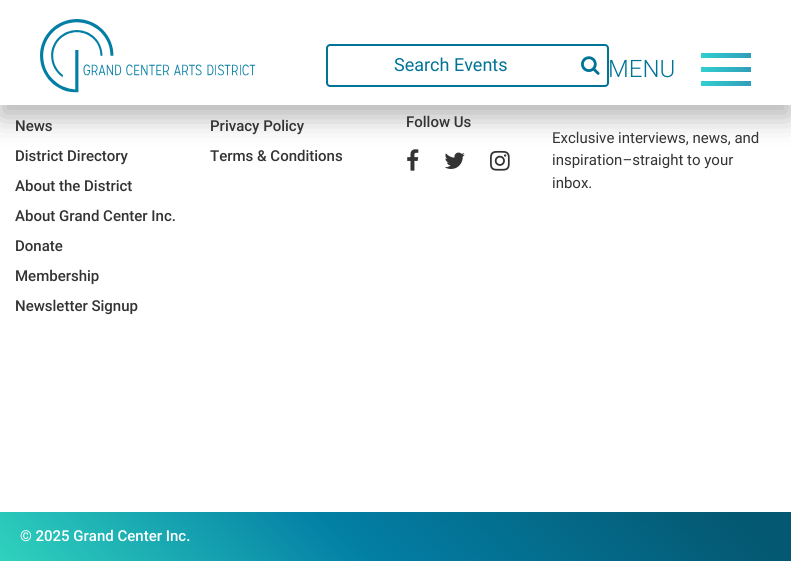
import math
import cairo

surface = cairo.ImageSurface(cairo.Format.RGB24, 791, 561)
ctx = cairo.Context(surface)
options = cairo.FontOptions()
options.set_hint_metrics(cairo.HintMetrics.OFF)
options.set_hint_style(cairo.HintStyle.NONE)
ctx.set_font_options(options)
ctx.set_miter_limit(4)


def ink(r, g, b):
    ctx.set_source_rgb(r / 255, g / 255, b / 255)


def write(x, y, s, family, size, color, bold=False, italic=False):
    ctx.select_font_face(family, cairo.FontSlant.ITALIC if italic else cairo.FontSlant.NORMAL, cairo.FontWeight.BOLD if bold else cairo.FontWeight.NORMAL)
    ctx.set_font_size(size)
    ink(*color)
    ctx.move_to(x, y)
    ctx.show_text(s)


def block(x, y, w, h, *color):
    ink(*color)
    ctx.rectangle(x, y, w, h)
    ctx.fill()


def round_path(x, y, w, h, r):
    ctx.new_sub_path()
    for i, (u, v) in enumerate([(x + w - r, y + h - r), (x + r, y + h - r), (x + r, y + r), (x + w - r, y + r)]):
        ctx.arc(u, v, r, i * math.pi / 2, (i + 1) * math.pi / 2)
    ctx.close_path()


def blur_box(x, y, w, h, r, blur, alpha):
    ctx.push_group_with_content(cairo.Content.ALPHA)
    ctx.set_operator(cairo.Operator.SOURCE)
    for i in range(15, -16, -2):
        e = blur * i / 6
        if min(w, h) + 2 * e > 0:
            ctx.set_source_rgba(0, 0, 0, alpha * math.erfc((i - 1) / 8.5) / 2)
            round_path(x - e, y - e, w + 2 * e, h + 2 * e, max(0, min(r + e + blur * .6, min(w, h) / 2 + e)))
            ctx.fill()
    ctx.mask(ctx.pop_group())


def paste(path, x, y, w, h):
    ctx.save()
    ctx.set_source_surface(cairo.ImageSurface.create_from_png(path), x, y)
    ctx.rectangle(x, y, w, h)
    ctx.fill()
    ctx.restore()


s1 = dict(family="Roboto", size=18, color=(0, 115, 150))
s2 = dict(family="Roboto Light", size=24, color=(0, 115, 150))
s3 = dict(family="Roboto Medium", size=15, color=(51, 51, 51))
s4 = dict(family="Roboto", size=15, color=(51, 51, 51))
s5 = dict(family="Roboto Medium", size=15, color=(255, 255, 255))

ink(255, 255, 255)
ctx.paint()
paste("pic3.png", 407, 149, 12, 22)
paste("pic4.png", 444, 152, 21, 17)
paste("pic5.png", 490, 150, 20, 21)
ink(0, 0, 0)
blur_box(0, 12, 791, 105, 0, 14, 0.3)
block(0, 0, 791, 105, 255, 255, 255)
paste("pic1.png", 40, 19, 216, 74)
ink(0, 115, 150)
ctx.set_fill_rule(cairo.FillRule.EVEN_ODD)
ctx.new_path()
ctx.move_to(330, 44)
ctx.line_to(573, 44)
ctx.line_to(573, 87)
ctx.line_to(330, 87)
ctx.curve_to(328, 87, 326, 85, 326, 83)
ctx.line_to(326, 48)
ctx.curve_to(326, 46, 328, 44, 330, 44)
ctx.close_path()
ctx.move_to(330, 46)
ctx.line_to(573, 46)
ctx.line_to(573, 85)
ctx.line_to(330, 85)
ctx.curve_to(329, 85, 328, 84, 328, 83)
ctx.line_to(328, 48)
ctx.curve_to(328, 47, 329, 46, 330, 46)
ctx.close_path()
ctx.fill()
write(394, 71, "Search Events", **s1)
ctx.new_path()
ctx.move_to(573, 44)
ctx.line_to(605, 44)
ctx.curve_to(607, 44, 609, 46, 609, 48)
ctx.line_to(609, 83)
ctx.curve_to(609, 85, 607, 87, 605, 87)
ctx.line_to(573, 87)
ctx.close_path()
ctx.move_to(573, 46)
ctx.line_to(605, 46)
ctx.curve_to(606, 46, 607, 47, 607, 48)
ctx.line_to(607, 83)
ctx.curve_to(607, 84, 606, 85, 605, 85)
ctx.line_to(573, 85)
ctx.close_path()
ctx.fill()
paste("pic2.png", 581, 56, 19, 19)
gradient = cairo.LinearGradient(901, 63, 701, 63)
gradient.add_color_stop_rgba(0, 0.2, 0.031, 0.463, 1)
gradient.add_color_stop_rgba(1, 0.188, 0.812, 0.816, 1)
ctx.set_source(gradient)
ctx.rectangle(701, 53, 50, 5)
ctx.fill()
write(608, 77, "MENU", **s2)
gradient = cairo.LinearGradient(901, 77, 701, 77)
gradient.add_color_stop_rgba(0, 0.2, 0.031, 0.463, 1)
gradient.add_color_stop_rgba(1, 0.188, 0.812, 0.816, 1)
ctx.set_source(gradient)
ctx.rectangle(701, 67, 50, 5)
ctx.fill()
gradient = cairo.LinearGradient(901, 91, 701, 91)
gradient.add_color_stop_rgba(0, 0.2, 0.031, 0.463, 1)
gradient.add_color_stop_rgba(1, 0.188, 0.812, 0.816, 1)
ctx.set_source(gradient)
ctx.rectangle(701, 81, 50, 5)
ctx.fill()
write(15, 131, "News", **s3)
write(15, 161, "District Directory", **s3)
write(15, 191, "About the District", **s3)
write(15, 221, "About Grand Center Inc.", **s3)
write(15, 251, "Donate", **s3)
write(15, 281, "Membership", **s3)
write(15, 311, "Newsletter Signup", **s3)
write(210, 131, "Privacy Policy", **s3)
write(210, 161, "Terms & Conditions", **s3)
write(406, 127, "Follow Us", **s3)
write(552, 143, "Exclusive interviews, news, and", **s4)
write(552, 165, "inspiration–straight to your", **s4)
write(552, 188, "inbox.", **s4)
gradient = cairo.LinearGradient(599, 326, 192, 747)
gradient.add_color_stop_rgba(0, 0.016, 0.345, 0.443, 1)
gradient.add_color_stop_rgba(0.07, 0.016, 0.345, 0.443, 1)
gradient.add_color_stop_rgba(0.56, 0.012, 0.498, 0.647, 1)
gradient.add_color_stop_rgba(1, 0.188, 0.824, 0.745, 1)
ctx.set_source(gradient)
ctx.rectangle(0, 512, 791, 49)
ctx.fill()
write(20, 541, "© 2025 Grand Center Inc.", **s5)
surface.write_to_png("screenshot.png")
